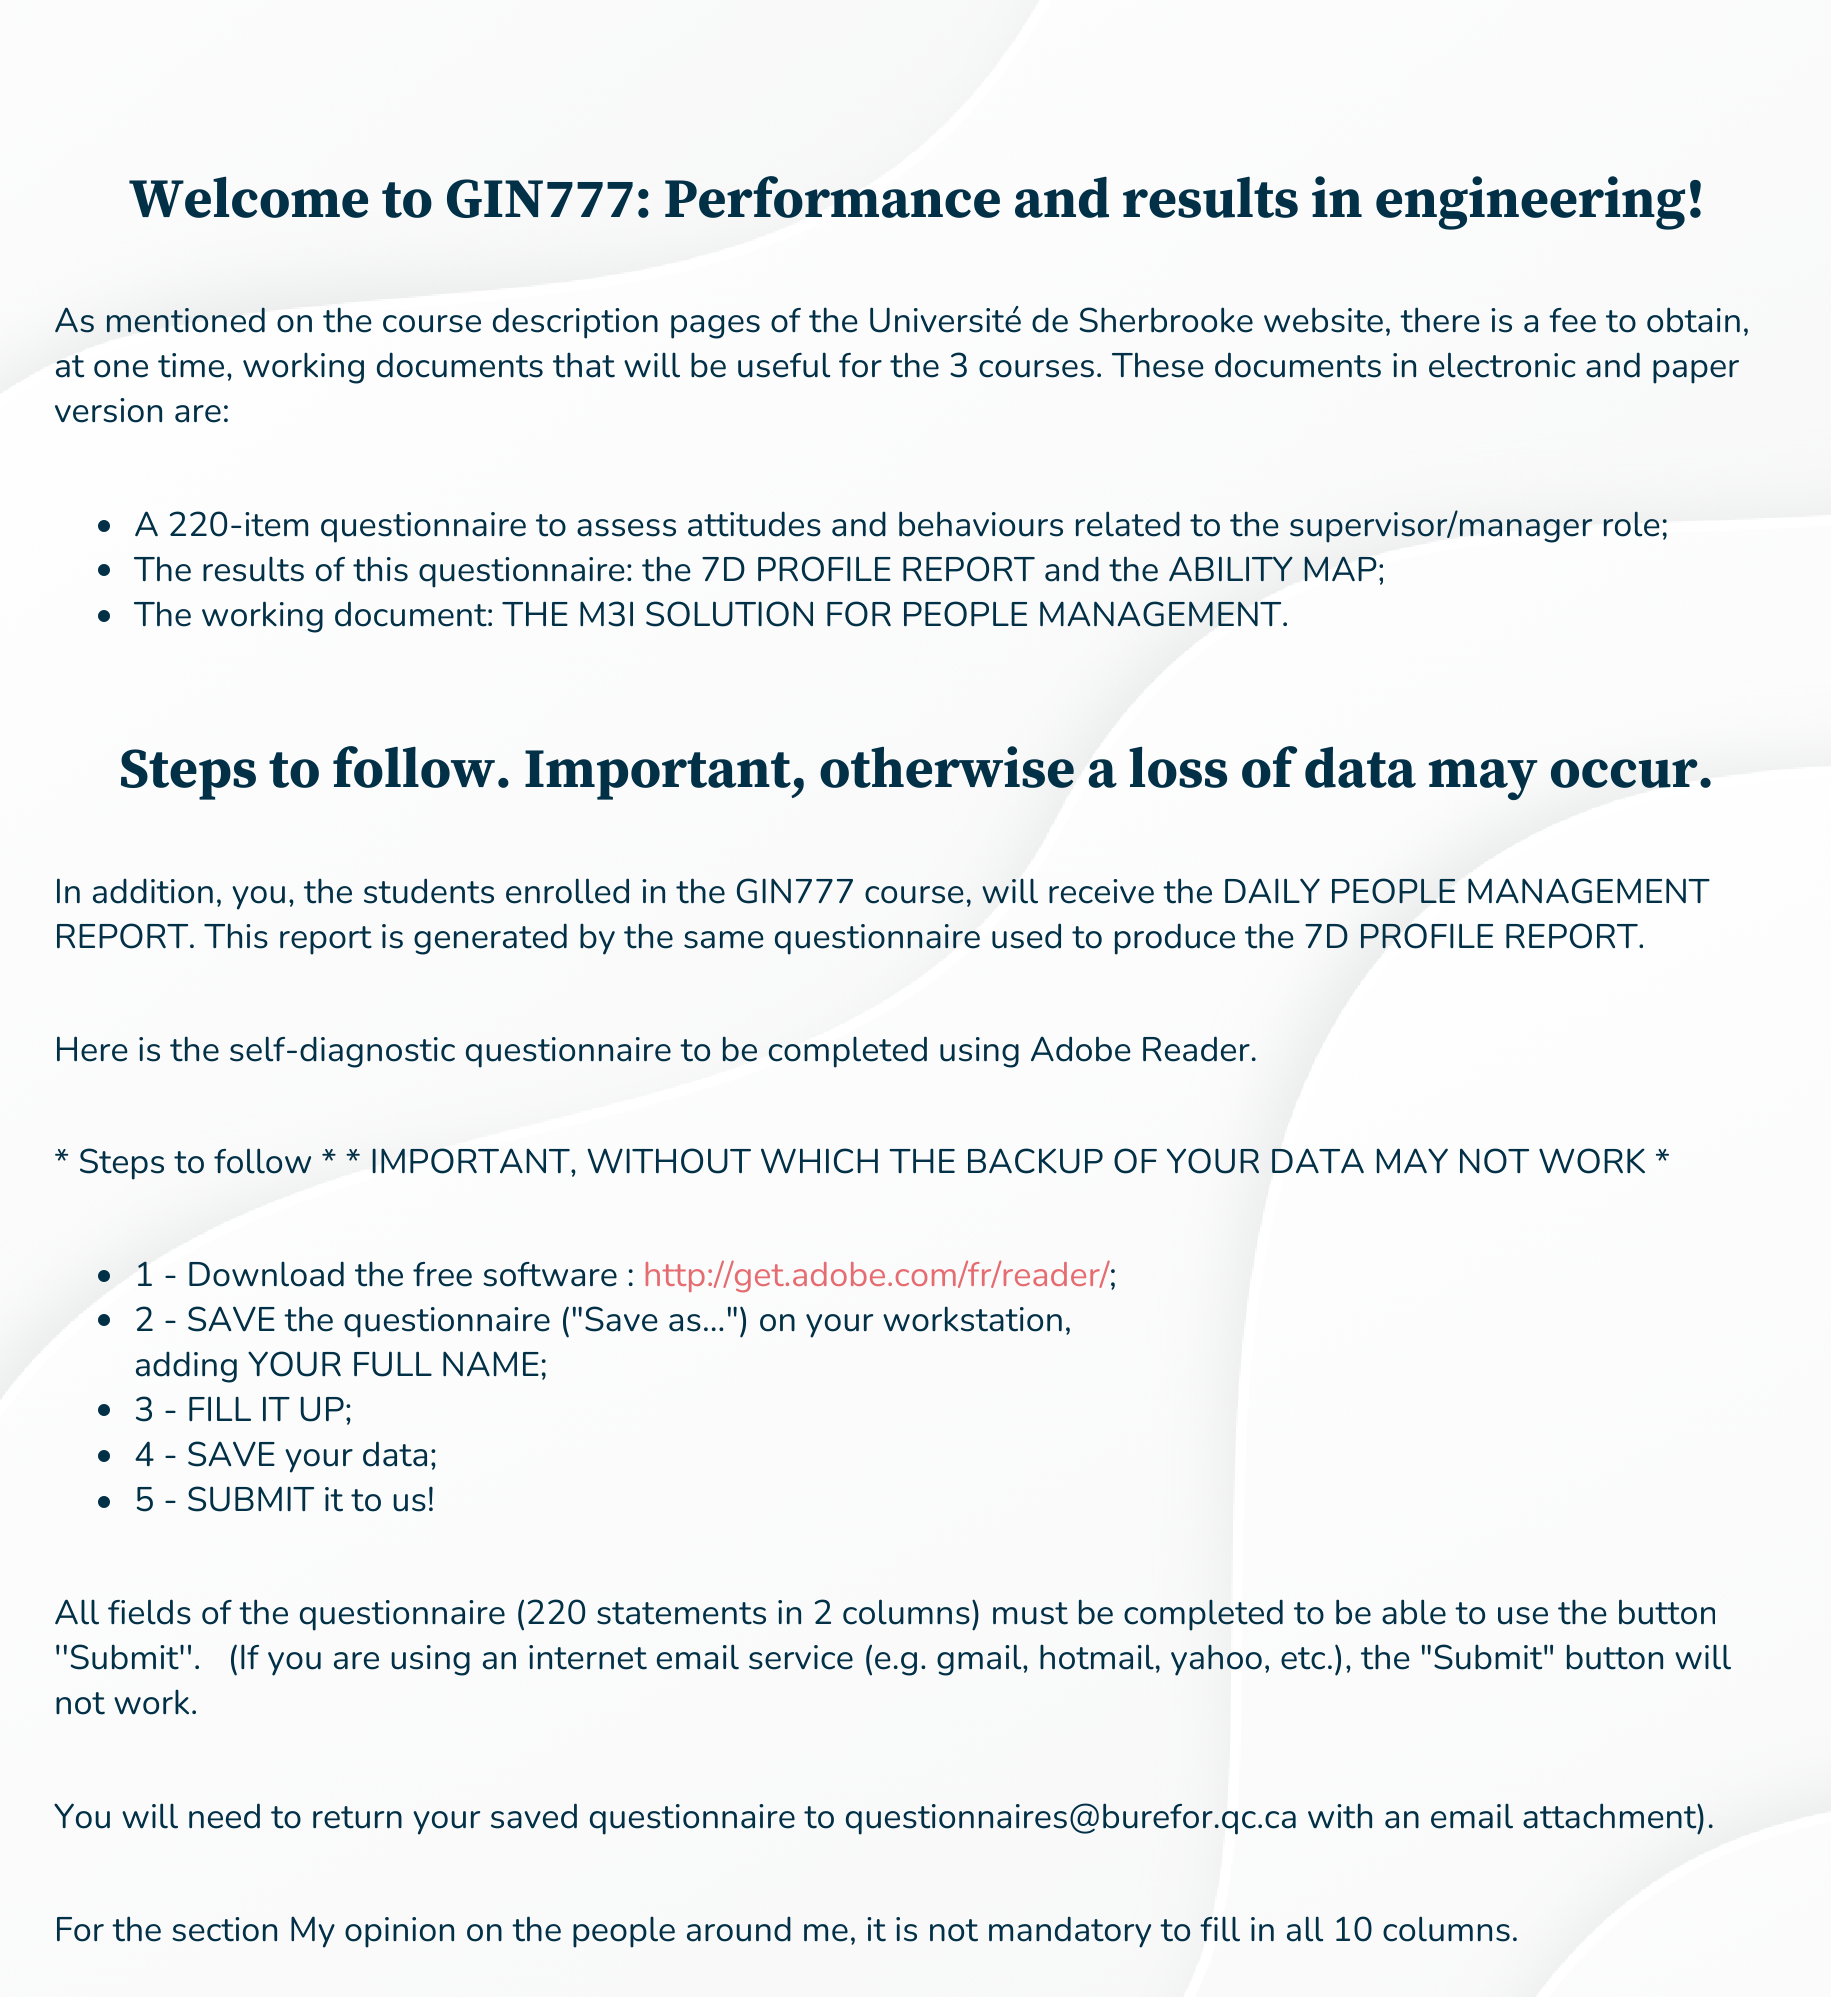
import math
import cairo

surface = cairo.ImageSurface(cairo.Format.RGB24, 1831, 1997)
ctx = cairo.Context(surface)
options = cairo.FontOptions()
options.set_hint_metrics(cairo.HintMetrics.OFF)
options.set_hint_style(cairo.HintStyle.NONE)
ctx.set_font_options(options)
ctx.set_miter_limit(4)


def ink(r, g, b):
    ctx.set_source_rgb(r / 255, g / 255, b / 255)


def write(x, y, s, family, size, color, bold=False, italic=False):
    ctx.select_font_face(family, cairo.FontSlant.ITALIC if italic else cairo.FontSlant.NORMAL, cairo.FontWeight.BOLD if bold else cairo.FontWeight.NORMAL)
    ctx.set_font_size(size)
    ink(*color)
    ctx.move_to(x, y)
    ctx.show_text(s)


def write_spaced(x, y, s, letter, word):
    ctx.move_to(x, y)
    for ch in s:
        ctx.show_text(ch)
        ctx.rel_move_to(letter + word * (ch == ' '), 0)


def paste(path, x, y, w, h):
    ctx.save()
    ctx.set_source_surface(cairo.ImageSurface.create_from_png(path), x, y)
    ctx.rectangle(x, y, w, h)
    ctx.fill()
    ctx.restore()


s1 = dict(family="Source Serif Pro", size=55.6, color=(2, 48, 71), bold=True)
s2 = dict(family="Nunito", size=34.15, color=(2, 48, 71))
s3 = dict(family="Nunito", size=34.15, color=(229, 108, 112))

ink(255, 255, 255)
ctx.paint()
paste("pic1.png", 0, 0, 1831, 1997)
write(129, 217, "Welcome to GIN777: Performance and results in engineering!", **s1)
write(54, 332, "As mentioned on the course description pages of the Université de Sherbrooke website, there is a fee to obtain,", **s2)
write(54, 377, "at one time, working documents that will be useful for the 3 courses. These documents in electronic and paper", **s2)
write(54, 422, "version are:", **s2)
ctx.new_path()
ctx.arc(104, 526, 6, 0, 2 * math.pi)
ctx.fill()
write_spaced(134, 536, "A 220-item questionnaire to assess attitudes and behaviours related to the supervisor/manager role;", 0, -0.1)
ctx.new_path()
ctx.arc(104, 570, 6, 0, 2 * math.pi)
ctx.fill()
write(134, 581, "The results of this questionnaire: the 7D PROFILE REPORT and the ABILITY MAP;", **s2)
ctx.new_path()
ctx.arc(104, 616, 6, 0, 2 * math.pi)
ctx.fill()
write_spaced(134, 626, "The working document: THE M3I SOLUTION FOR PEOPLE MANAGEMENT.", 0, -0.25)
write(119, 787, "Steps to follow. Important, otherwise a loss of data may occur.", **s1)
write(54, 903, "In addition, you, the students enrolled in the GIN777 course, will receive the DAILY PEOPLE MANAGEMENT", **s2)
write(54, 948, "REPORT. This report is generated by the same questionnaire used to produce the 7D PROFILE REPORT.", **s2)
write_spaced(54, 1061, "Here is the self-diagnostic questionnaire to be completed using Adobe Reader.", 0, -0.1)
write(54, 1173, "* Steps to follow * * IMPORTANT, WITHOUT WHICH THE BACKUP OF YOUR DATA MAY NOT WORK *", **s2)
ctx.new_path()
ctx.arc(104, 1276, 6, 0, 2 * math.pi)
ctx.fill()
write(134, 1286, "1 - Download the free software :", **s2)
write(643, 1286, "http://get.adobe.com/fr/reader/", **s3)
write(1109, 1286, ";", **s2)
ctx.new_path()
ctx.arc(104, 1320, 6, 0, 2 * math.pi)
ctx.fill()
write(134, 1331, "2 - SAVE the questionnaire (\"Save as...\") on your workstation,", **s2)
write(134, 1376, "adding YOUR FULL NAME;", **s2)
ctx.new_path()
ctx.arc(104, 1410, 6, 0, 2 * math.pi)
ctx.fill()
write(134, 1421, "3 - FILL IT UP;", **s2)
ctx.new_path()
ctx.arc(104, 1456, 6, 0, 2 * math.pi)
ctx.fill()
write(134, 1466, "4 - SAVE your data;", **s2)
ctx.new_path()
ctx.arc(104, 1502, 6, 0, 2 * math.pi)
ctx.fill()
write(134, 1511, "5 - SUBMIT it to us!", **s2)
write(54, 1624, "All fields of the questionnaire (220 statements in 2 columns) must be completed to be able to use the button", **s2)
write(54, 1669, "''Submit''.   (If you are using an internet email service (e.g. gmail, hotmail, yahoo, etc.), the \"Submit\" button will", **s2)
write(54, 1714, "not work.", **s2)
write_spaced(54, 1828, "You will need to return your saved questionnaire to questionnaires@burefor.qc.ca with an email attachment).", 0, -0.1)
write(54, 1941, "For the section My opinion on the people around me, it is not mandatory to fill in all 10 columns.", **s2)
surface.write_to_png("screenshot.png")
